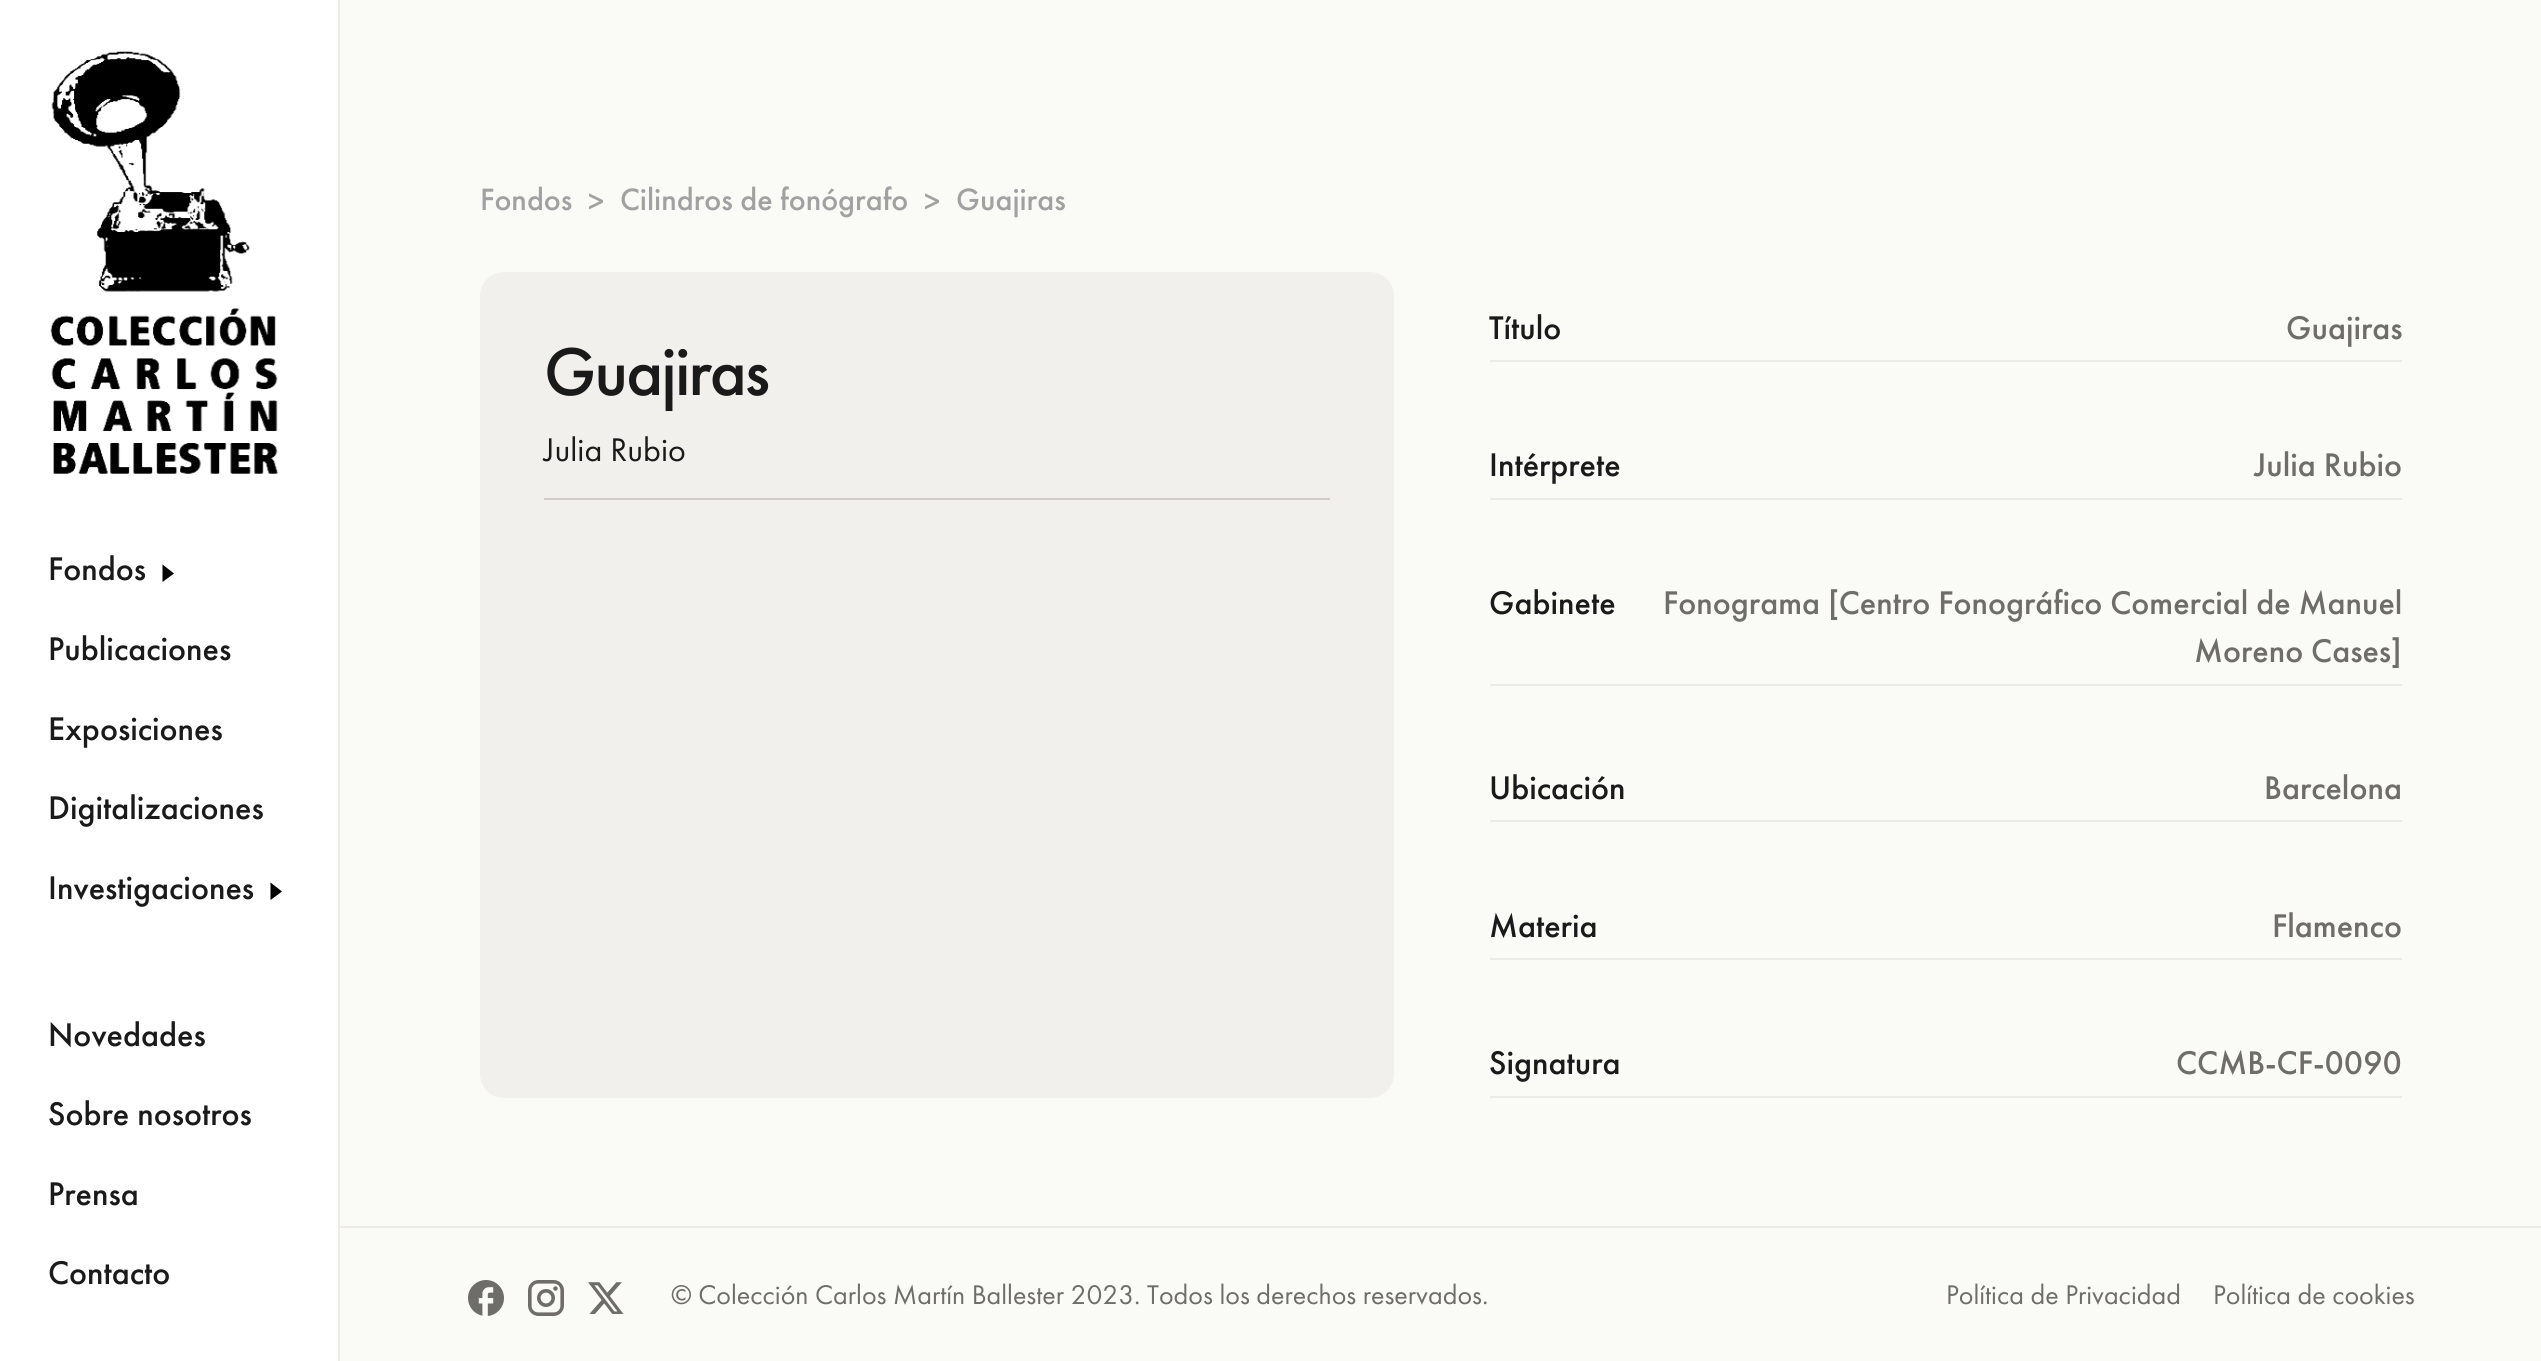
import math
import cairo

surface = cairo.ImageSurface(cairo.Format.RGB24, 2541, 1361)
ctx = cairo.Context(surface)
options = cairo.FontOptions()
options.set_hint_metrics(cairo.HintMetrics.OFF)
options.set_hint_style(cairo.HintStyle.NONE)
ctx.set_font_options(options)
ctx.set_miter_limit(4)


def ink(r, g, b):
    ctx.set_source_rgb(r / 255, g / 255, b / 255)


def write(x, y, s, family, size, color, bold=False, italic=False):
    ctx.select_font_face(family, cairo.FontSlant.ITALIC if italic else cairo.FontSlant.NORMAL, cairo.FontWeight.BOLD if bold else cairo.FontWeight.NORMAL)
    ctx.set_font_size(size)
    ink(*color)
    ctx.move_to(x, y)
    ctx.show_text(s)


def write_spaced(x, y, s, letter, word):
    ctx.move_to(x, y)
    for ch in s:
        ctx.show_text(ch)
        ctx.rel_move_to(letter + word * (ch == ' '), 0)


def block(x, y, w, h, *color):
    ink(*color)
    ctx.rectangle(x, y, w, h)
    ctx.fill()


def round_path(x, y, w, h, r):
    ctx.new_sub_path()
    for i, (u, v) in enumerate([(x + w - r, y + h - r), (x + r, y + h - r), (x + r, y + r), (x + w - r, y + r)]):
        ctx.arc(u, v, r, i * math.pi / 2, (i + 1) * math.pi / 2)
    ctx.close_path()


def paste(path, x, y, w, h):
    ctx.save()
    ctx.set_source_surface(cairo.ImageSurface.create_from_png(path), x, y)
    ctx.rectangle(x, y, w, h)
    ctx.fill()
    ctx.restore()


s1 = dict(family="Futura PT Medium", size=34, color=(26, 26, 26))
s2 = dict(family="Futura PT Medium", size=32, color=(161, 161, 161))
s3 = dict(family="Futura PT", size=34, color=(26, 26, 26))
s4 = dict(family="Futura PT Medium", size=34, color=(111, 109, 106))
s5 = dict(family="Futura PT", size=28, color=(111, 109, 106))

ink(250, 250, 247)
ctx.paint()
block(0, 0, 338, 1361, 255, 255, 255)
block(338, 0, 2, 1361, 236, 235, 232)
paste("pic1.png", 50, 51, 229, 423)
write(48, 580, "Fondos", **s1)
ink(0, 0, 0)
ctx.new_path()
ctx.move_to(162.5, 564.5)
ctx.line_to(162.5, 582)
ctx.line_to(174, 573.5)
ctx.close_path()
ctx.fill()
write(48, 660, "Publicaciones", **s1)
write(48, 740, "Exposiciones", **s1)
write(48, 819, "Digitalizaciones", **s1)
write(48, 899, "Investigaciones", **s1)
ink(0, 0, 0)
ctx.new_path()
ctx.move_to(270.5, 882.5)
ctx.line_to(270.5, 900)
ctx.line_to(282, 891.5)
ctx.close_path()
ctx.fill()
write(48, 1046, "Novedades", **s1)
write(48, 1125, "Sobre nosotros", **s1)
write(48, 1205, "Prensa", **s1)
write(48, 1284, "Contacto", **s1)
write(480, 210, "Fondos", **s2)
write(588, 212, ">", **s2)
write(620, 210, "Cilindros de fonógrafo", **s2)
write(924, 212, ">", **s2)
write(956, 210, "Guajiras", **s2)
ink(242, 240, 237)
round_path(480, 272, 914, 826, 24)
ctx.fill()
block(544, 498, 786, 2, 209, 205, 198)
ctx.set_font_size(70)
ink(26, 26, 26)
write_spaced(544, 395, "Guajiras", -2, 0)
write(544, 461, "Julia Rubio", **s3)
block(1490, 360, 912, 2, 236, 235, 232)
write(1489, 339, "Título", **s1)
write(2286, 339, "Guajiras", **s4)
block(1490, 498, 912, 2, 236, 235, 232)
write(1489, 476, "Intérprete", **s1)
write(2254, 476, "Julia Rubio", **s4)
block(1490, 684, 912, 2, 236, 235, 232)
write(1489, 614, "Gabinete", **s1)
write(1663, 614, "Fonograma [Centro Fonográfico Comercial de Manuel", **s4)
write(2194, 662, "Moreno Cases]", **s4)
block(1490, 820, 912, 2, 236, 235, 232)
write(1489, 799, "Ubicación", **s1)
write(2264, 799, "Barcelona", **s4)
block(1490, 958, 912, 2, 236, 235, 232)
write(1489, 937, "Materia", **s1)
write(2272, 937, "Flamenco", **s4)
block(1490, 1096, 912, 2, 236, 235, 232)
write(1489, 1074, "Signatura", **s1)
write(2176, 1074, "CCMB-CF-0090", **s4)
block(340, 1226, 2201, 2, 236, 235, 232)
paste("pic2.png", 468, 1280, 36, 36)
paste("pic3.png", 528, 1280, 36, 36)
paste("pic4.png", 588, 1282, 36, 32)
write(671, 1304, "© Colección Carlos Martín Ballester 2023. Todos los derechos reservados.", **s5)
write(1946, 1304, "Política de Privacidad", **s5)
write(2213, 1304, "Política de cookies", **s5)
surface.write_to_png("screenshot.png")
